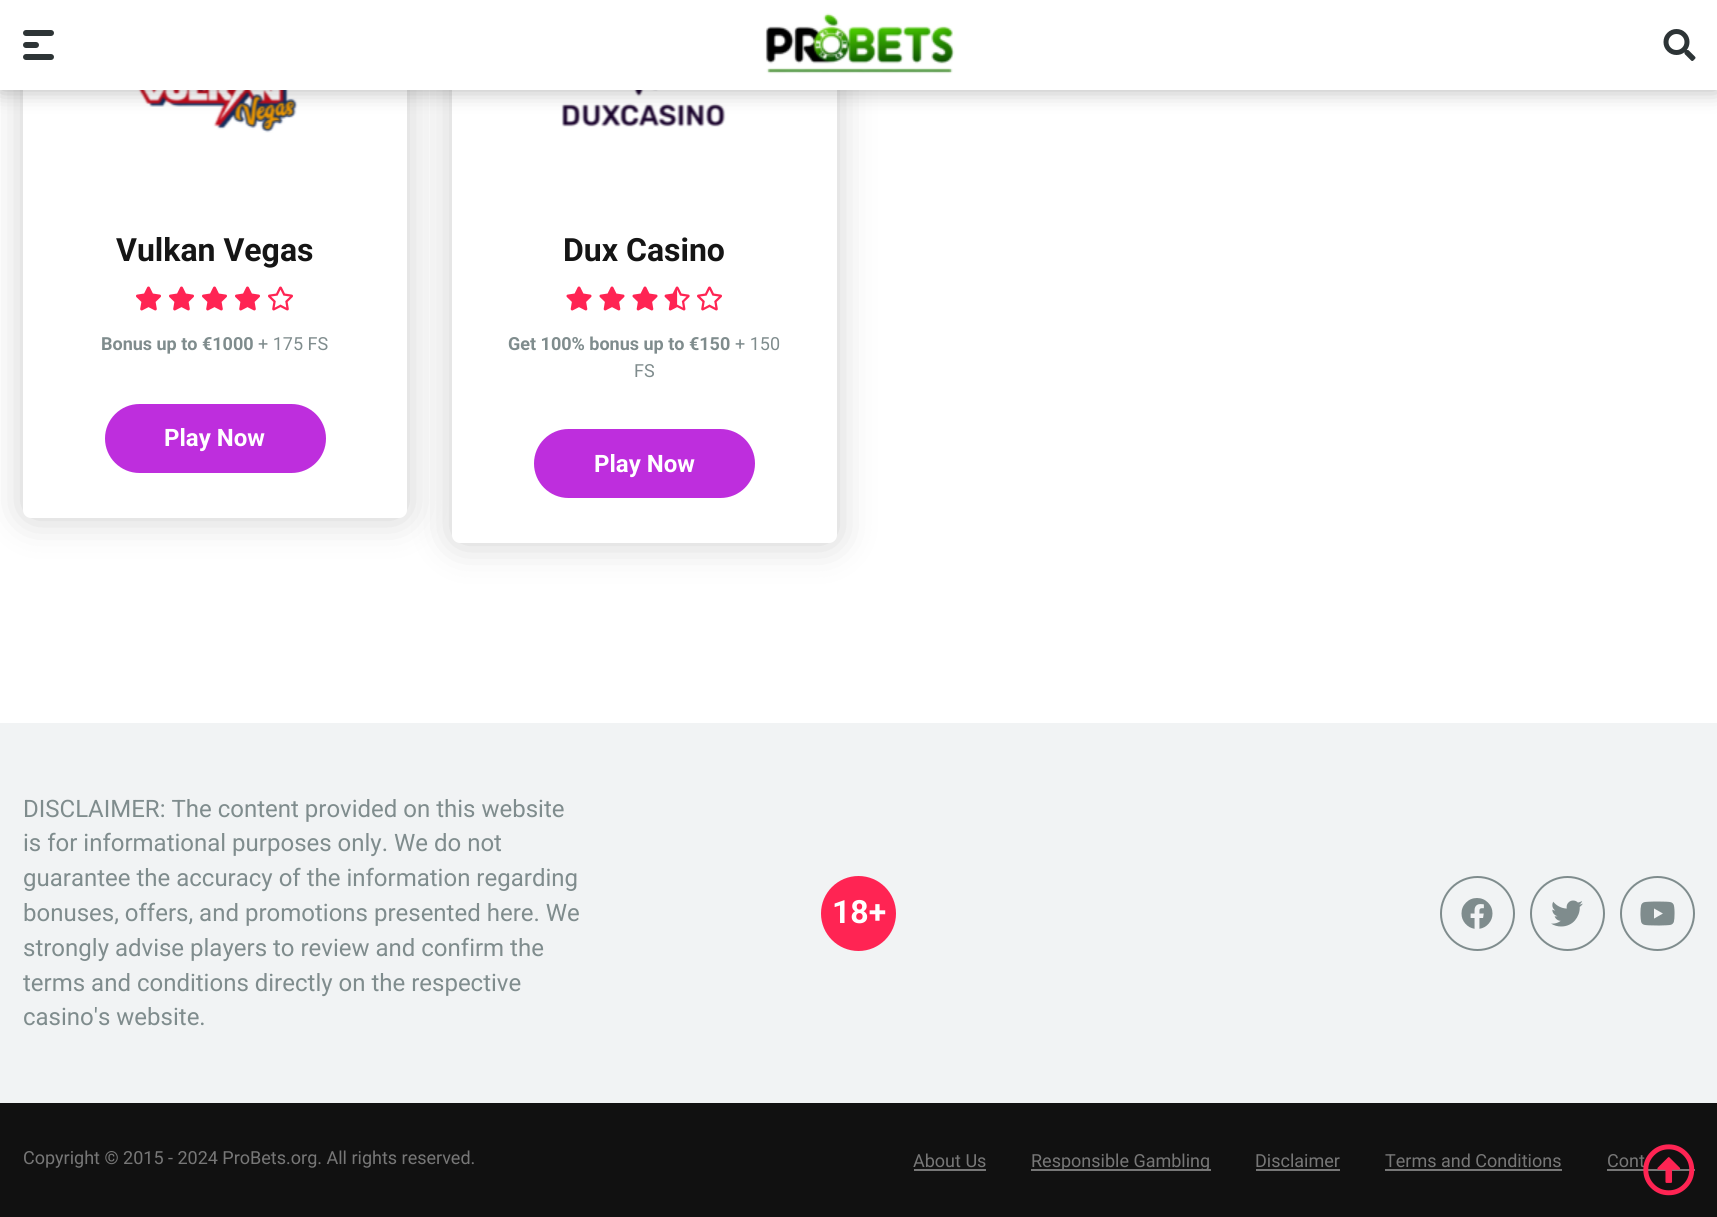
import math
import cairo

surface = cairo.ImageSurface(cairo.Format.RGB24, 1717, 1217)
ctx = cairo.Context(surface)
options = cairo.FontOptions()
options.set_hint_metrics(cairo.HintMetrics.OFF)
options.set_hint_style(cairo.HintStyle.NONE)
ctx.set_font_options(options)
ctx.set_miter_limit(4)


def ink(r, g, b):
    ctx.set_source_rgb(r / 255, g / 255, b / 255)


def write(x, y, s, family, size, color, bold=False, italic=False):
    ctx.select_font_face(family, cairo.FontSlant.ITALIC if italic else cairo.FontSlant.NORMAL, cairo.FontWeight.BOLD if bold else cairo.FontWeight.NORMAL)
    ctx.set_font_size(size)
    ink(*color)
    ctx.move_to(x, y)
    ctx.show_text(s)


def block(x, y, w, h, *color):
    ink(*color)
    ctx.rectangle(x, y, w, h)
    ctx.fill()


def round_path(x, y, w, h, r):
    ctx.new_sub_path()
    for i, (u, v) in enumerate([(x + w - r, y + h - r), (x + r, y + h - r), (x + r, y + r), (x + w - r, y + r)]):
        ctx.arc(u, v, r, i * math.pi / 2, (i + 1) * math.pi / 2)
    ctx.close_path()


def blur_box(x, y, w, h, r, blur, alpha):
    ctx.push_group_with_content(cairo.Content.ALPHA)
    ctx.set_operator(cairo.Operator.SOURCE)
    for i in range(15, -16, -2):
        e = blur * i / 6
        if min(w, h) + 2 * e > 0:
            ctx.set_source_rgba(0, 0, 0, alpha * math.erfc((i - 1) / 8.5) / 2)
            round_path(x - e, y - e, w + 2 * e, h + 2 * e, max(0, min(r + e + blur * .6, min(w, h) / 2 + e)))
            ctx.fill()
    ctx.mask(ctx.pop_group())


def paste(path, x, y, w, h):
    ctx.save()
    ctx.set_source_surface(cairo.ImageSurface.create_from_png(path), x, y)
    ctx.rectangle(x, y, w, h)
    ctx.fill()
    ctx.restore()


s1 = dict(family="Roboto", size=32, color=(21, 21, 21), bold=True)
s2 = dict(family="Roboto", size=18, color=(127, 140, 141), bold=True)
s3 = dict(family="Roboto", size=18, color=(127, 140, 141))
s4 = dict(family="Roboto", size=24, color=(255, 255, 255), bold=True)
s5 = dict(family="Roboto", size=24, color=(127, 140, 141))
s6 = dict(family="Roboto", size=32, color=(255, 255, 255), bold=True)
s7 = dict(family="Roboto", size=18, color=(119, 119, 119))

ink(255, 255, 255)
ctx.paint()
ink(0, 0, 0)
blur_box(23, -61, 384, 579, 8, 19, 0.2)
ink(255, 255, 255)
round_path(23, -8, 384, 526, 8)
ctx.fill()
paste("pic3.png", 132, 90, 166, 43)
ink(0, 0, 0)
blur_box(452, -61, 385, 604, 8, 19, 0.2)
ink(255, 255, 255)
round_path(452, -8, 385, 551, 8)
ctx.fill()
paste("pic6.png", 561, 90, 165, 37)
ink(0, 0, 0)
blur_box(0, 0, 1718, 90, 0, 11, 0.3)
block(0, 0, 1717, 90, 255, 255, 255)
ink(45, 52, 54)
round_path(23, 30, 31, 6, 3)
ctx.fill()
round_path(23, 42, 16, 6, 3)
ctx.fill()
round_path(23, 54, 31, 6, 3)
ctx.fill()
paste("pic1.png", 765, 13, 190, 61)
paste("pic2.png", 1663, 29, 33, 32)
write(116, 261, "Vulkan Vegas", **s1)
paste("pic4.png", 136, 286, 25, 25)
paste("pic4.png", 169, 286, 25, 25)
paste("pic4.png", 202, 286, 25, 25)
paste("pic4.png", 235, 286, 25, 25)
paste("pic5.png", 268, 286, 25, 25)
write(101, 350, "Bonus up to €1000", **s2)
write(258, 350, "+ 175 FS", **s3)
ink(190, 46, 221)
round_path(105, 404, 221, 69, 34.5)
ctx.fill()
write(164, 446, "Play Now", **s4)
write(563, 261, "Dux Casino", **s1)
paste("pic7.png", 566, 286, 26, 25)
paste("pic7.png", 599, 286, 26, 25)
paste("pic7.png", 632, 286, 26, 25)
paste("pic8.png", 664, 286, 26, 25)
paste("pic5.png", 697, 286, 25, 25)
write(508, 350, "Get 100% bonus up to €150", **s2)
write(735, 350, "+ 150", **s3)
write(634, 377, "FS", **s3)
ink(190, 46, 221)
round_path(534, 429, 221, 69, 34.5)
ctx.fill()
write(594, 472, "Play Now", **s4)
block(0, 723, 1717, 380, 241, 243, 244)
write(23, 817, "DISCLAIMER: The content provided on this website", **s5)
write(23, 851, "is for informational purposes only. We do not", **s5)
write(23, 886, "guarantee the accuracy of the information regarding", **s5)
write(23, 921, "bonuses, offers, and promotions presented here. We", **s5)
write(23, 956, "strongly advise players to review and confirm the", **s5)
write(23, 991, "terms and conditions directly on the respective", **s5)
write(23, 1025, "casino's website.", **s5)
ink(255, 36, 83)
ctx.new_path()
ctx.arc(858.5, 913.5, 37.5, 0, 2 * math.pi)
ctx.fill()
write(832, 923, "18+", **s6)
ctx.new_path()
ctx.arc(1477.5, 913.5, 36.5, 0, 2 * math.pi)
ink(127, 140, 141)
ctx.stroke()
paste("pic9.png", 1461, 898, 32, 31)
ctx.arc(1567.5, 913.5, 36.5, 0, 2 * math.pi)
ctx.stroke()
paste("pic10.png", 1551, 900, 32, 27)
ctx.arc(1657.5, 913.5, 36.5, 0, 2 * math.pi)
ctx.stroke()
paste("pic11.png", 1640, 901, 35, 25)
block(0, 1103, 1717, 114, 17, 17, 17)
write(23, 1164, "Copyright © 2015 - 2024 ProBets.org. All rights reserved.", **s7)
write(913, 1167, "About Us", **s7)
block(914, 1169, 72, 2, 119, 119, 119)
block(1031, 1169, 180, 2, 119, 119, 119)
write(1031, 1167, "Responsible Gambling", **s7)
write(1255, 1167, "Disclaimer", **s7)
block(1256, 1169, 84, 2, 119, 119, 119)
write(1385, 1167, "Terms and Conditions", **s7)
block(1385, 1169, 177, 2, 119, 119, 119)
write(1607, 1167, "Cont", **s7)
block(1607, 1169, 88, 2, 119, 119, 119)
paste("pic12.png", 1643, 1144, 52, 52)
surface.write_to_png("screenshot.png")
